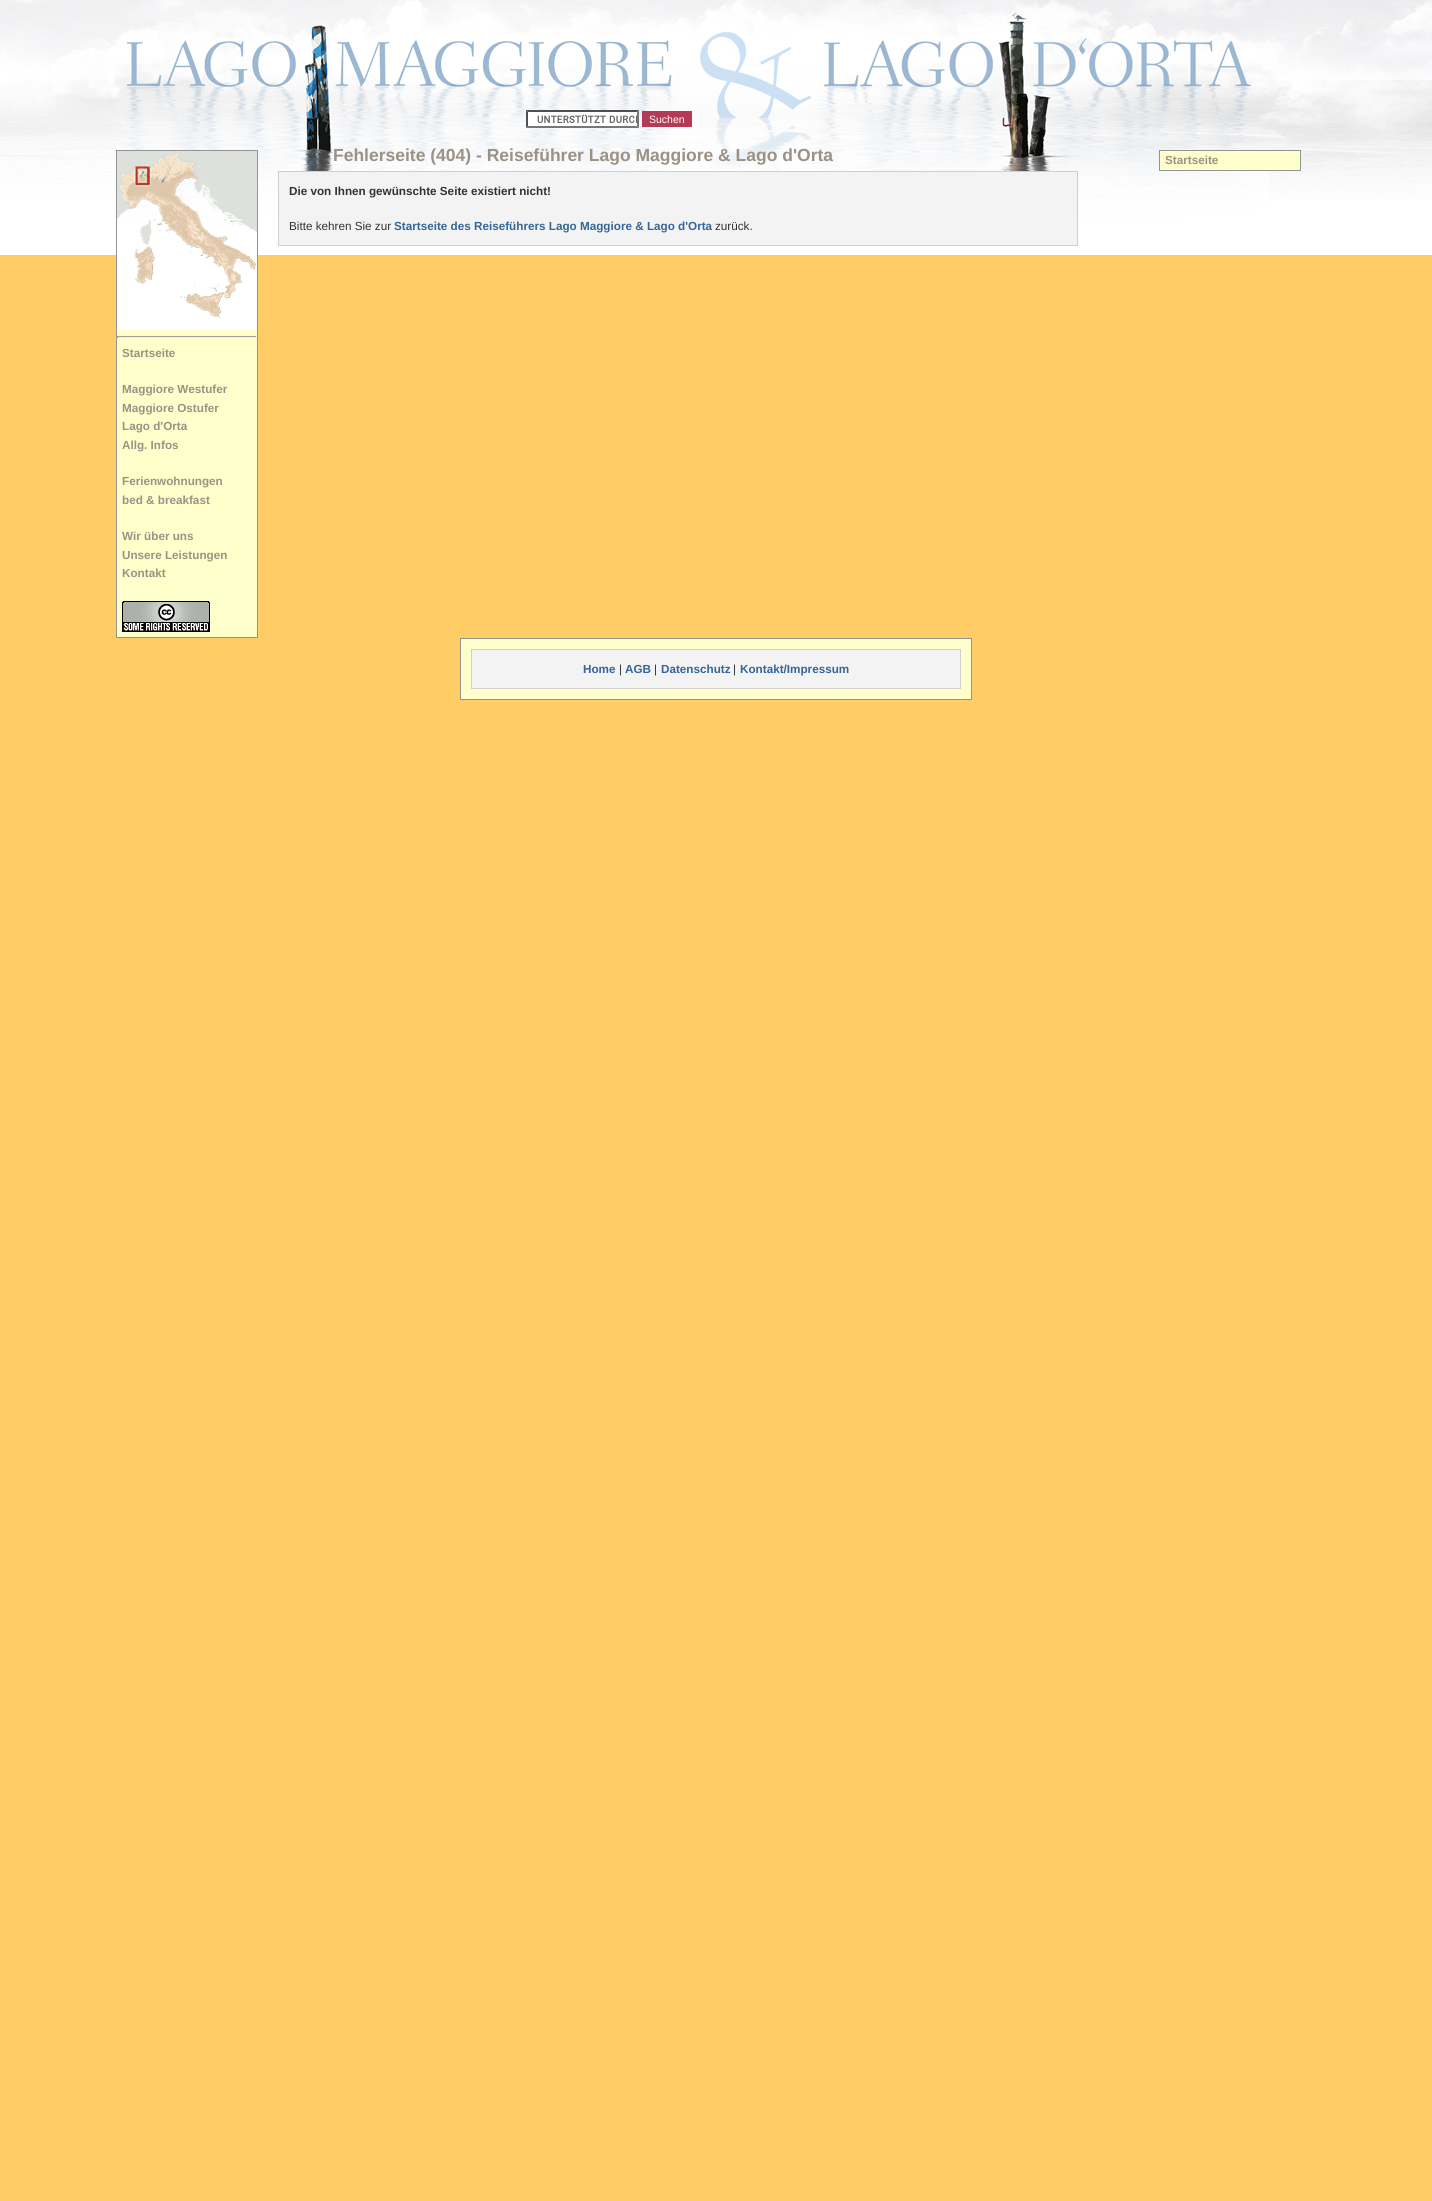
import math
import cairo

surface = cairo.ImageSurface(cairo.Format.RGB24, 1432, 2201)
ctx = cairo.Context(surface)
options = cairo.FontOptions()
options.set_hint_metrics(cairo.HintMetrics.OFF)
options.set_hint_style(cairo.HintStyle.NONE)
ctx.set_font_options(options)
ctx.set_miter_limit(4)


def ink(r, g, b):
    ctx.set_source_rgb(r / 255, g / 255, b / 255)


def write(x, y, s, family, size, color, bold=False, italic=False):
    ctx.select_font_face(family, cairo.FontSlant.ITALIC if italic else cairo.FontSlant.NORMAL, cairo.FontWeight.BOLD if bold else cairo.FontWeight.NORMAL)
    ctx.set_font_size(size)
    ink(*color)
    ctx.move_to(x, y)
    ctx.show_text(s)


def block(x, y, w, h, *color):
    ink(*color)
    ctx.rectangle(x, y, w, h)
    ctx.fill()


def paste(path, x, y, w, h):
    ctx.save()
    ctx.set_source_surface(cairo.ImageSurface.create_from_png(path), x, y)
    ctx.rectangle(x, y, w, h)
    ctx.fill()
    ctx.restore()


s1 = dict(family="Liberation Sans", size=10.5, color=(255, 255, 255))
s2 = dict(family="Liberation Sans", size=17.5, color=(155, 145, 132), bold=True)
s3 = dict(family="Liberation Sans", size=11.7, color=(51, 51, 51), bold=True)
s4 = dict(family="Liberation Sans", size=11.7, color=(51, 51, 51))
s5 = dict(family="Liberation Sans", size=11.7, color=(51, 102, 153), bold=True)
s6 = dict(family="Liberation Sans", size=11.7, color=(155, 145, 132), bold=True)

ink(255, 204, 102)
ctx.paint()
paste("pic1.png", 0, 0, 1432, 255)
paste("pic2.png", 103, 0, 1189, 236)
block(526, 110, 113, 18, 255, 255, 255)
paste("pic3.png", 537, 114, 100, 9)
ink(79, 79, 79)
ctx.new_path()
ctx.move_to(526, 110)
ctx.line_to(639, 110)
ctx.line_to(637, 112)
ctx.line_to(528, 112)
ctx.close_path()
ctx.fill()
ink(118, 118, 118)
ctx.new_path()
ctx.move_to(639, 110)
ctx.line_to(639, 128)
ctx.line_to(637, 126)
ctx.line_to(637, 112)
ctx.close_path()
ctx.fill()
ctx.new_path()
ctx.move_to(639, 128)
ctx.line_to(526, 128)
ctx.line_to(528, 126)
ctx.line_to(637, 126)
ctx.close_path()
ctx.fill()
ink(79, 79, 79)
ctx.new_path()
ctx.move_to(526, 128)
ctx.line_to(526, 110)
ctx.line_to(528, 112)
ctx.line_to(528, 126)
ctx.close_path()
ctx.fill()
block(642, 111, 50, 16, 180, 58, 86)
write(649, 123, "Suchen", **s1)
write(333, 161, "Fehlerseite (404) - Reiseführer Lago Maggiore & Lago d'Orta", **s2)
ink(244, 243, 244)
ctx.rectangle(278.5, 171.5, 799, 74)
ctx.fill_preserve()
ink(207, 207, 207)
ctx.set_line_width(1)
ctx.stroke()
write(289, 195, "Die von Ihnen gewünschte Seite existiert nicht!", **s3)
write(289, 230, "Bitte kehren Sie zur", **s4)
write(394, 230, "Startseite des Reiseführers Lago Maggiore & Lago d'Orta", **s5)
write(715, 230, "zurück.", **s4)
ink(255, 255, 204)
ctx.rectangle(1159.5, 150.5, 141, 20)
ctx.fill_preserve()
ink(148, 148, 149)
ctx.stroke()
write(1165, 164, "Startseite", **s6)
block(117, 330, 140, 307, 255, 255, 204)
ctx.rectangle(116.5, 150.5, 141, 487)
ink(148, 148, 149)
ctx.stroke()
paste("pic4.png", 117, 151, 140, 179)
block(117, 336, 140, 1, 159, 159, 159)
block(256, 336, 1, 2, 238, 238, 238)
block(117, 337, 140, 1, 238, 238, 238)
block(117, 336, 1, 2, 159, 159, 159)
write(122, 357, "Startseite", **s6)
write(122, 393, "Maggiore Westufer", **s6)
write(122, 412, "Maggiore Ostufer", **s6)
write(122, 430, "Lago d'Orta", **s6)
write(122, 449, "Allg. Infos", **s6)
write(122, 485, "Ferienwohnungen", **s6)
write(122, 504, "bed & breakfast", **s6)
write(122, 540, "Wir über uns", **s6)
write(122, 559, "Unsere Leistungen", **s6)
write(122, 577, "Kontakt", **s6)
paste("pic5.png", 122, 601, 88, 31)
ink(255, 255, 204)
ctx.rectangle(460.5, 638.5, 511, 61)
ctx.fill_preserve()
ink(148, 148, 149)
ctx.stroke()
ink(244, 243, 244)
ctx.rectangle(471.5, 649.5, 489, 39)
ctx.fill_preserve()
ink(207, 207, 207)
ctx.stroke()
write(583, 673, "Home", **s5)
write(619, 673, "|", **s4)
write(625, 673, "AGB", **s5)
write(654, 673, "|", **s4)
write(661, 673, "Datenschutz", **s5)
write(733, 673, "|", **s4)
write(740, 673, "Kontakt/Impressum", **s5)
surface.write_to_png("screenshot.png")
